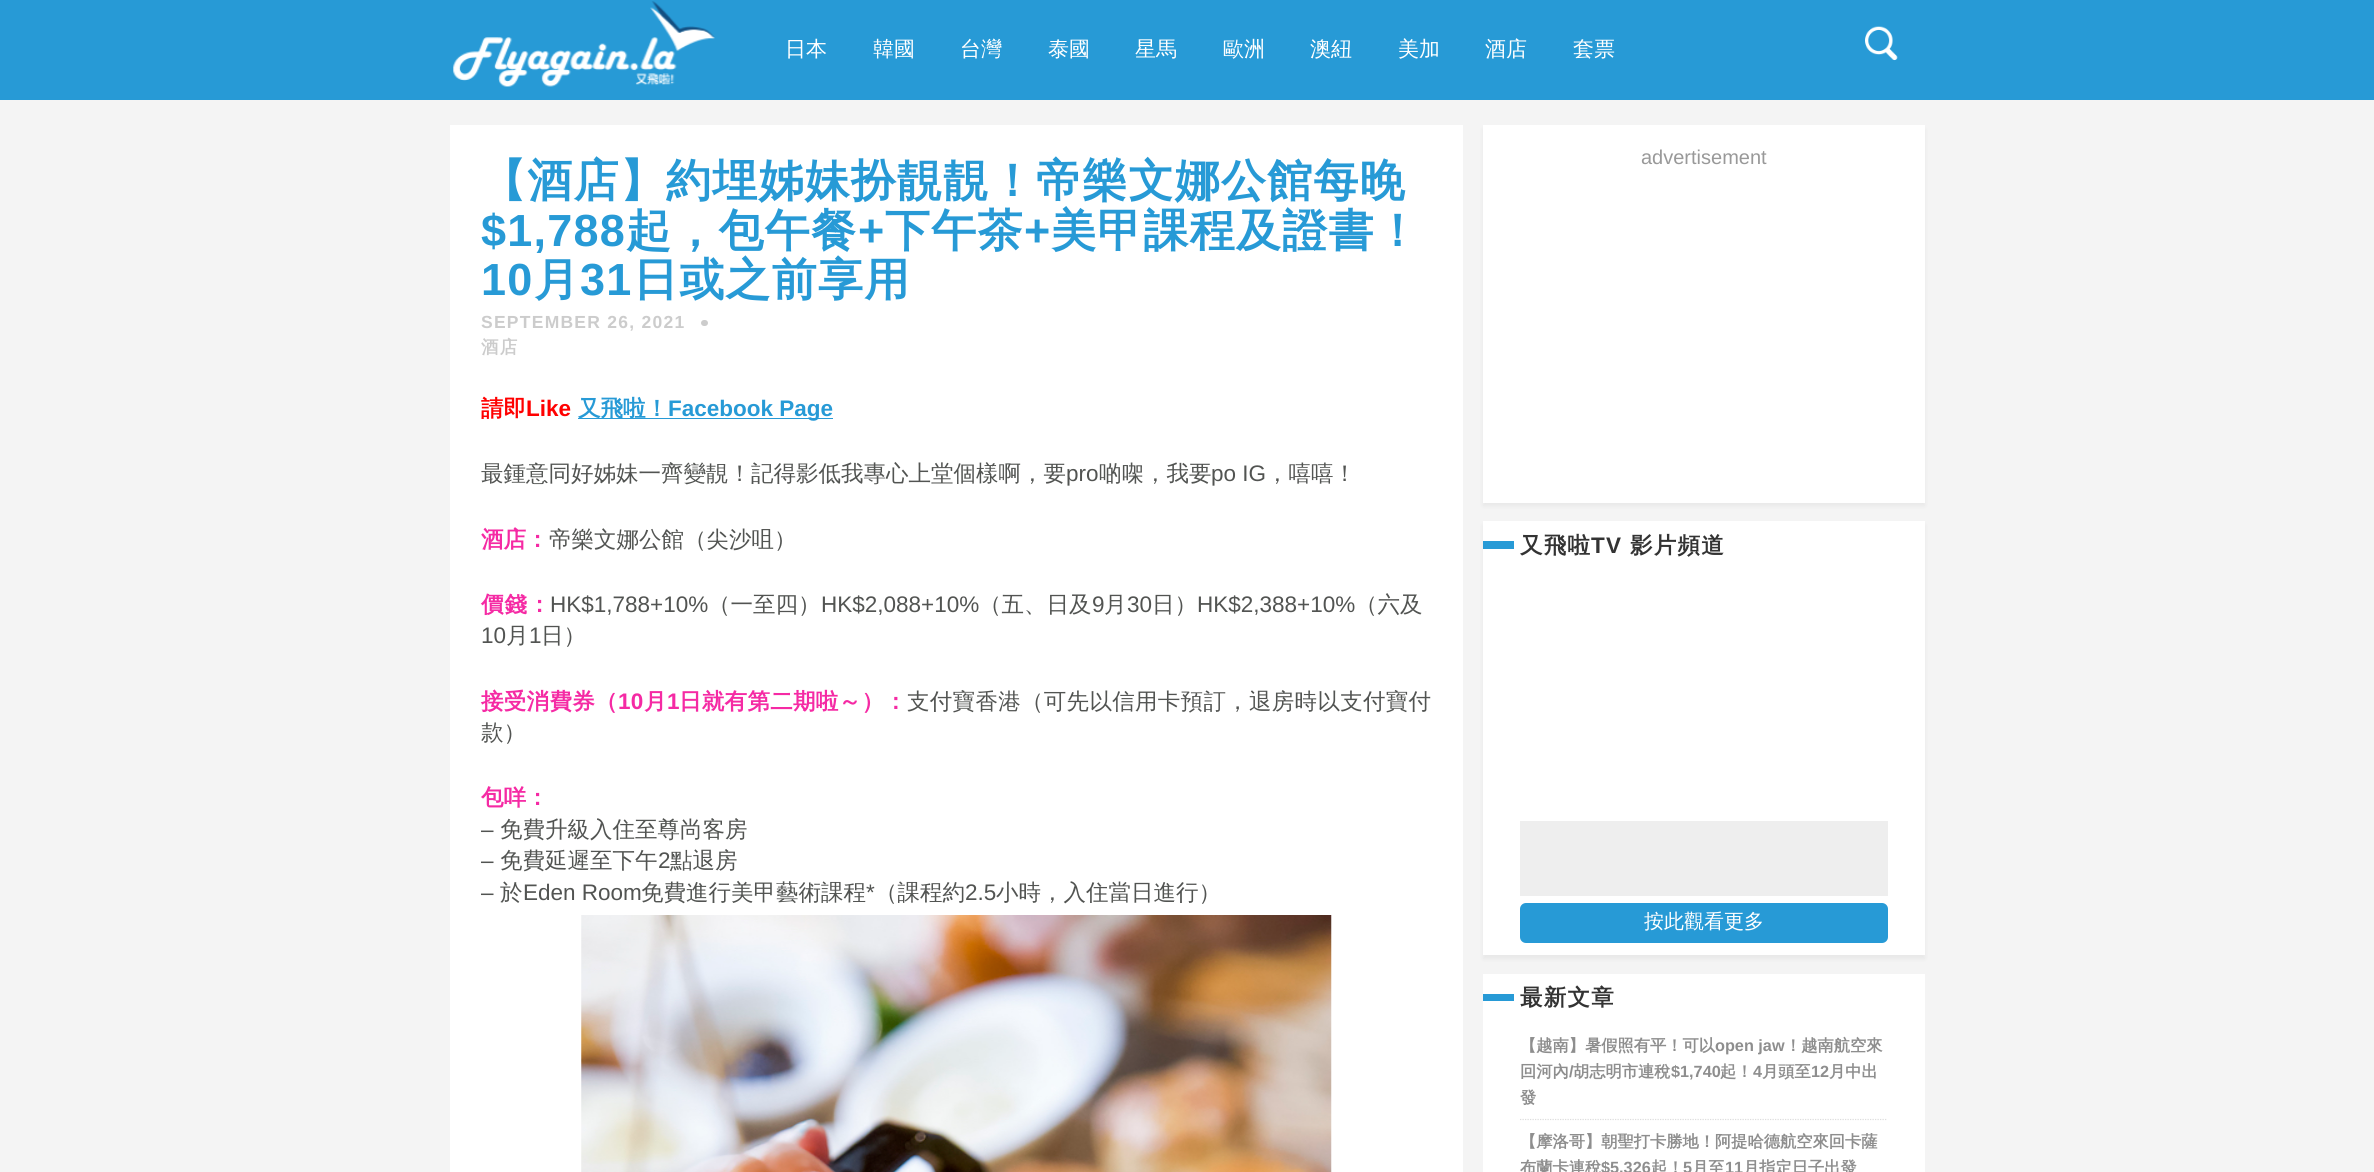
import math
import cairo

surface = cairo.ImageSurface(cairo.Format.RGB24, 2374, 1172)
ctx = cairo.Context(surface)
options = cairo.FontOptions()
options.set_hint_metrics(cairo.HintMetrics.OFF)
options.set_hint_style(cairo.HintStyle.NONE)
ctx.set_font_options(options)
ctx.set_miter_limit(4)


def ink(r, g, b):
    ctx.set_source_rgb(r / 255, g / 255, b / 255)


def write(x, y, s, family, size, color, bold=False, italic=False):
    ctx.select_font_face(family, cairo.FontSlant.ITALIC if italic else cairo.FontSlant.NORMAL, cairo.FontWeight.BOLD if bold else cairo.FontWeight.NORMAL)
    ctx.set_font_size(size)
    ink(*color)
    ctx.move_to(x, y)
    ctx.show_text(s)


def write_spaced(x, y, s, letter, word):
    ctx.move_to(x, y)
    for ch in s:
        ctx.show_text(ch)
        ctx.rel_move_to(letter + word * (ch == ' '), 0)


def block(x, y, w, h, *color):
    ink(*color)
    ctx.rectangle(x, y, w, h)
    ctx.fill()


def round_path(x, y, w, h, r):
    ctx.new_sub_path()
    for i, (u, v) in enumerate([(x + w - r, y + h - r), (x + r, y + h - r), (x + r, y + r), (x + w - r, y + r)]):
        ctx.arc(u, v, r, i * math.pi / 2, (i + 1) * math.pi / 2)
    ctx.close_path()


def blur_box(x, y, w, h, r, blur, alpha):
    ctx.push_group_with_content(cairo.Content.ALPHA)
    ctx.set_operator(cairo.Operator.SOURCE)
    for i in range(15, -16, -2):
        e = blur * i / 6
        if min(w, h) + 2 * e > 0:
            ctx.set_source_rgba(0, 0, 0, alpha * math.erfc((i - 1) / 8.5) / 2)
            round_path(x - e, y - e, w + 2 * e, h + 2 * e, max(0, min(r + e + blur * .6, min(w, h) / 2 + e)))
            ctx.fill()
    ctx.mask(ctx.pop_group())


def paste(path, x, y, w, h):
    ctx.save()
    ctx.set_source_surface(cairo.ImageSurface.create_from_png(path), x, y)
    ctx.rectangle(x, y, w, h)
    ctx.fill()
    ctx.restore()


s1 = dict(family="WenQuanYi Zen Hei Medium", size=21, color=(255, 255, 255))
s2 = dict(family="WenQuanYi Zen Hei", size=22.5, color=(255, 0, 0), bold=True)
s3 = dict(family="Liberation Sans", size=22.5, color=(255, 0, 0), bold=True)
s4 = dict(family="WenQuanYi Zen Hei", size=22.5, color=(39, 154, 214), bold=True)
s5 = dict(family="Liberation Sans", size=22.5, color=(39, 154, 214), bold=True)
s6 = dict(family="WenQuanYi Zen Hei Medium", size=22.5, color=(82, 84, 82))
s7 = dict(family="Liberation Sans", size=22.5, color=(82, 84, 82))
s8 = dict(family="WenQuanYi Zen Hei", size=22.5, color=(245, 42, 164), bold=True)
s9 = dict(family="Liberation Sans", size=20, color=(153, 153, 153))
s10 = dict(family="WenQuanYi Zen Hei Medium", size=20, color=(255, 255, 255))
s11 = dict(family="WenQuanYi Zen Hei", size=16.25, color=(142, 142, 142), bold=True)
s12 = dict(family="Liberation Sans", size=16.25, color=(142, 142, 142), bold=True)

ink(244, 244, 244)
ctx.paint()
block(0, 0, 2374, 100, 39, 154, 214)
paste("pic1.png", 453, 1, 262, 86)
write(785, 56, "日本", **s1)
write(873, 56, "韓國", **s1)
write(960, 56, "台灣", **s1)
write(1048, 56, "泰國", **s1)
write(1135, 56, "星馬", **s1)
write(1223, 56, "歐洲", **s1)
write(1310, 56, "澳紐", **s1)
write(1398, 56, "美加", **s1)
write(1485, 56, "酒店", **s1)
write(1573, 56, "套票", **s1)
paste("pic2.png", 1865, 26, 33, 35)
block(450, 125, 1013, 1047, 255, 255, 255)
ctx.select_font_face("WenQuanYi Zen Hei", cairo.FontSlant.NORMAL, cairo.FontWeight.BOLD)
ctx.set_font_size(45)
ink(39, 154, 214)
write_spaced(481, 196, "【酒店】約埋姊妹扮靚靚！帝樂文娜公館每晚", 1.25, 0)
ctx.select_font_face("Liberation Sans", cairo.FontSlant.NORMAL, cairo.FontWeight.BOLD)
write_spaced(481, 246, "$1,788", 1.25, 0)
ctx.select_font_face("WenQuanYi Zen Hei", cairo.FontSlant.NORMAL, cairo.FontWeight.BOLD)
write_spaced(626, 246, "起，包午餐", 1.25, 0)
ctx.select_font_face("Liberation Sans", cairo.FontSlant.NORMAL, cairo.FontWeight.BOLD)
write_spaced(858, 246, "+", 1.25, 0)
ctx.select_font_face("WenQuanYi Zen Hei", cairo.FontSlant.NORMAL, cairo.FontWeight.BOLD)
write_spaced(885, 246, "下午茶", 1.25, 0)
ctx.select_font_face("Liberation Sans", cairo.FontSlant.NORMAL, cairo.FontWeight.BOLD)
write_spaced(1024, 246, "+", 1.25, 0)
ctx.select_font_face("WenQuanYi Zen Hei", cairo.FontSlant.NORMAL, cairo.FontWeight.BOLD)
write_spaced(1051, 246, "美甲課程及證書！", 1.25, 0)
ctx.select_font_face("Liberation Sans", cairo.FontSlant.NORMAL, cairo.FontWeight.BOLD)
write_spaced(481, 295, "10", 1.25, 0)
ctx.select_font_face("WenQuanYi Zen Hei", cairo.FontSlant.NORMAL, cairo.FontWeight.BOLD)
write_spaced(534, 295, "月", 1.25, 0)
ctx.select_font_face("Liberation Sans", cairo.FontSlant.NORMAL, cairo.FontWeight.BOLD)
write_spaced(580, 295, "31", 1.25, 0)
ctx.select_font_face("WenQuanYi Zen Hei", cairo.FontSlant.NORMAL, cairo.FontWeight.BOLD)
write_spaced(633, 295, "日或之前享用", 1.25, 0)
ctx.select_font_face("Liberation Sans", cairo.FontSlant.NORMAL, cairo.FontWeight.BOLD)
ctx.set_font_size(17.5)
ink(204, 204, 204)
write_spaced(481, 328, "SEPTEMBER 26, 2021", 1.25, 0)
round_path(701, 320, 7, 6, 3)
ctx.fill()
ctx.select_font_face("WenQuanYi Zen Hei", cairo.FontSlant.NORMAL, cairo.FontWeight.BOLD)
write_spaced(481, 353, "酒店", 1.25, 0)
write(481, 416, "請即", **s2)
write(526, 416, "Like", **s3)
block(578, 418, 255, 1, 39, 154, 214)
write(578, 416, "又飛啦！", **s4)
write(668, 416, "Facebook Page", **s5)
write(481, 481, "最鍾意同好姊妹一齊變靚！記得影低我專心上堂個樣啊，要", **s6)
write(1066, 481, "pro", **s7)
write(1099, 481, "啲㗎，我要", **s6)
write(1211, 481, "po IG", **s7)
write(1266, 481, "，嘻嘻！", **s6)
write(481, 547, "酒店：", **s8)
write(549, 547, "帝樂文娜公館（尖沙咀）", **s6)
ctx.select_font_face("WenQuanYi Zen Hei", cairo.FontSlant.NORMAL, cairo.FontWeight.BOLD)
ink(245, 42, 164)
write_spaced(481, 612, "價錢：", 1, 0)
write(550, 612, "HK$1,788+10%", **s7)
write(708, 612, "（一至四）", **s6)
write(821, 612, "HK$2,088+10%", **s7)
write(979, 612, "（五、日及", **s6)
write(1092, 612, "9", **s7)
write(1104, 612, "月", **s6)
write(1127, 612, "30", **s7)
write(1152, 612, "日）", **s6)
write(1197, 612, "HK$2,388+10%", **s7)
write(1355, 612, "（六及", **s6)
write(481, 643, "10", **s7)
write(506, 643, "月", **s6)
write(529, 643, "1", **s7)
write(541, 643, "日）", **s6)
ctx.select_font_face("WenQuanYi Zen Hei", cairo.FontSlant.NORMAL, cairo.FontWeight.BOLD)
ink(245, 42, 164)
write_spaced(481, 709, "接受消費券（", 0.3, 0)
ctx.select_font_face("Liberation Sans", cairo.FontSlant.NORMAL, cairo.FontWeight.BOLD)
write_spaced(618, 709, "10", 0.3, 0)
ctx.select_font_face("WenQuanYi Zen Hei", cairo.FontSlant.NORMAL, cairo.FontWeight.BOLD)
write_spaced(644, 709, "月", 0.3, 0)
ctx.select_font_face("Liberation Sans", cairo.FontSlant.NORMAL, cairo.FontWeight.BOLD)
write_spaced(667, 709, "1", 0.3, 0)
ctx.select_font_face("WenQuanYi Zen Hei", cairo.FontSlant.NORMAL, cairo.FontWeight.BOLD)
write_spaced(679, 709, "日就有第二期啦～）：", 0.3, 0)
ctx.select_font_face("WenQuanYi Zen Hei Medium")
ink(82, 84, 82)
write_spaced(907, 709, "支付寶香港（可先以信用卡預訂，退房時以支付寶付", 0.3, 0)
write(481, 740, "款）", **s6)
write(481, 805, "包咩：", **s8)
write(481, 837, "–", **s7)
write(500, 837, "免費升級入住至尊尚客房", **s6)
write(481, 868, "–", **s7)
write(500, 868, "免費延遲至下午", **s6)
write(658, 868, "2", **s7)
write(670, 868, "點退房", **s6)
write(481, 900, "–", **s7)
write(500, 900, "於", **s6)
write(523, 900, "Eden Room", **s7)
write(641, 900, "免費進行美甲藝術課程", **s6)
write(866, 900, "*", **s7)
write(875, 900, "（課程約", **s6)
write(965, 900, "2.5", **s7)
write(996, 900, "小時，入住當日進行）", **s6)
paste("pic3.png", 581, 915, 751, 257)
ink(0, 0, 0)
blur_box(1483, 129, 442, 377, 0, 2, 0.05)
block(1483, 125, 442, 378, 255, 255, 255)
write(1641, 164, "advertisement", **s9)
ink(0, 0, 0)
blur_box(1483, 525, 442, 434, 0, 2, 0.05)
block(1483, 521, 442, 434, 255, 255, 255)
block(1483, 541, 31, 8, 39, 154, 214)
ctx.select_font_face("WenQuanYi Zen Hei", cairo.FontSlant.NORMAL, cairo.FontWeight.BOLD)
ctx.set_font_size(22.5)
ink(51, 51, 51)
write_spaced(1520, 553, "又飛啦", 1.25, 0)
ctx.select_font_face("Liberation Sans", cairo.FontSlant.NORMAL, cairo.FontWeight.BOLD)
write_spaced(1591, 553, "TV", 1.25, 0)
ctx.select_font_face("WenQuanYi Zen Hei", cairo.FontSlant.NORMAL, cairo.FontWeight.BOLD)
write_spaced(1630, 553, "影片頻道", 1.25, 0)
block(1520, 821, 368, 75, 238, 238, 238)
ink(39, 154, 214)
round_path(1520, 903, 368, 40, 6)
ctx.fill()
write(1644, 928, "按此觀看更多", **s10)
block(1483, 974, 442, 198, 255, 255, 255)
block(1483, 994, 31, 7, 39, 154, 214)
ctx.select_font_face("WenQuanYi Zen Hei", cairo.FontSlant.NORMAL, cairo.FontWeight.BOLD)
ctx.set_font_size(22.5)
ink(51, 51, 51)
write_spaced(1520, 1005, "最新文章", 1.25, 0)
ctx.new_path()
ctx.move_to(1520, 1119.5)
ctx.line_to(1887.5, 1119.5)
ink(221, 221, 221)
ctx.set_line_width(1.2)
ctx.set_dash([1.25, 1.25])
ctx.stroke()
write(1520, 1051, "【越南】暑假照有平！可以", **s11)
write(1715, 1051, "open jaw", **s12)
write(1785, 1051, "！越南航空來", **s11)
write(1520, 1077, "回河內", **s11)
write(1569, 1077, "/", **s12)
write(1573, 1077, "胡志明市連稅", **s11)
write(1671, 1077, "$1,740", **s12)
write(1720, 1077, "起！", **s11)
write(1753, 1077, "4", **s12)
write(1762, 1077, "月頭至", **s11)
write(1811, 1077, "12", **s12)
write(1829, 1077, "月中出", **s11)
write(1520, 1103, "發", **s11)
write(1520, 1147, "【摩洛哥】朝聖打卡勝地！阿提哈德航空來回卡薩", **s11)
write(1520, 1173, "布蘭卡連稅", **s11)
write(1601, 1173, "$5,326", **s12)
write(1651, 1173, "起！", **s11)
write(1683, 1173, "5", **s12)
write(1692, 1173, "月至", **s11)
write(1725, 1173, "11", **s12)
write(1743, 1173, "月指定日子出發", **s11)
surface.write_to_png("screenshot.png")
